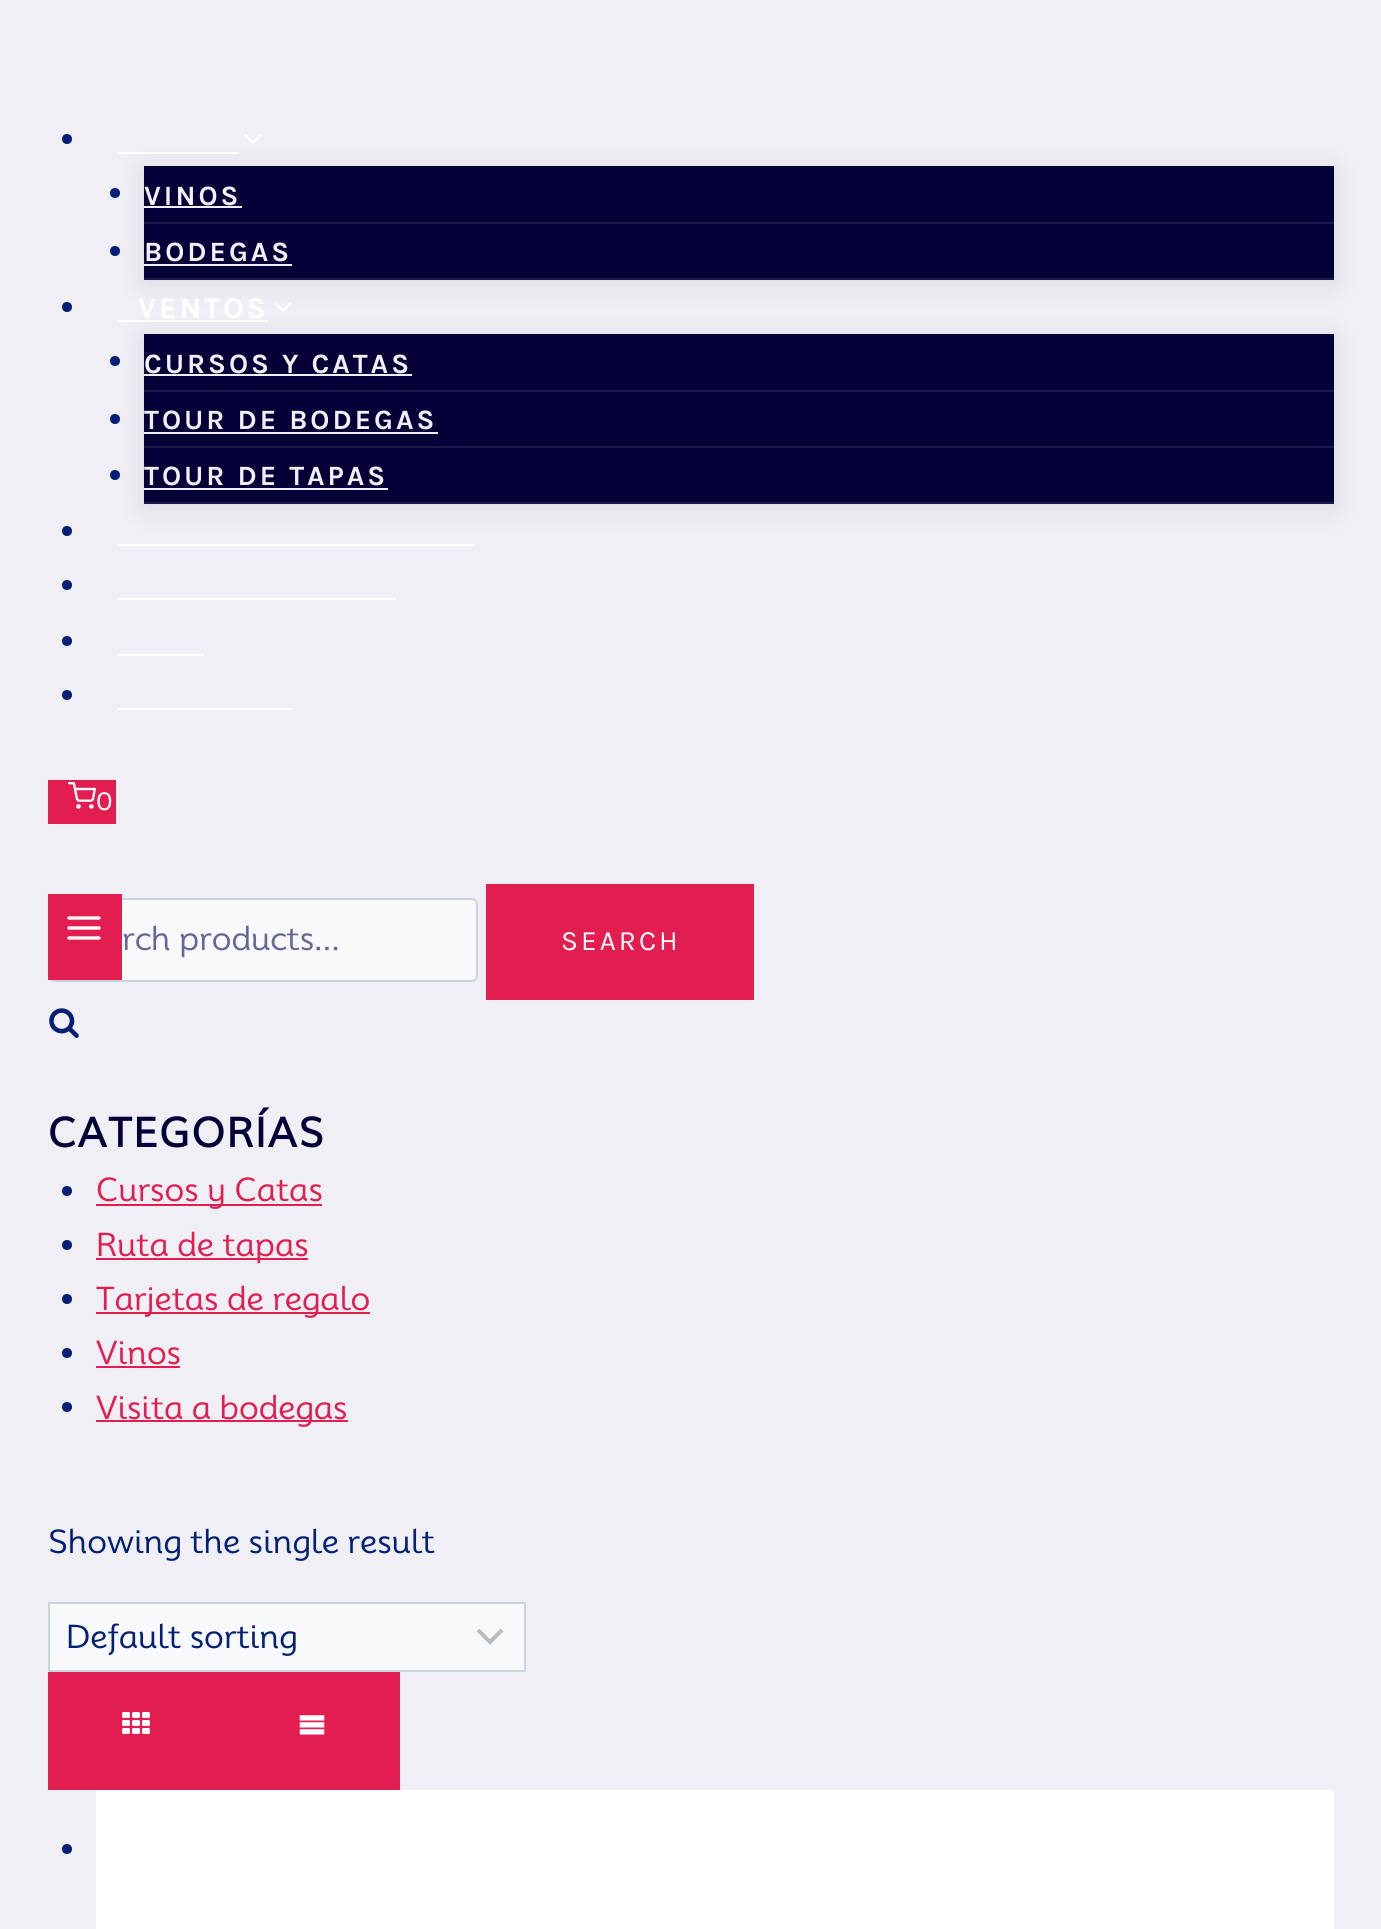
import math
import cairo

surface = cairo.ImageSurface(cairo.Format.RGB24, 1381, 1929)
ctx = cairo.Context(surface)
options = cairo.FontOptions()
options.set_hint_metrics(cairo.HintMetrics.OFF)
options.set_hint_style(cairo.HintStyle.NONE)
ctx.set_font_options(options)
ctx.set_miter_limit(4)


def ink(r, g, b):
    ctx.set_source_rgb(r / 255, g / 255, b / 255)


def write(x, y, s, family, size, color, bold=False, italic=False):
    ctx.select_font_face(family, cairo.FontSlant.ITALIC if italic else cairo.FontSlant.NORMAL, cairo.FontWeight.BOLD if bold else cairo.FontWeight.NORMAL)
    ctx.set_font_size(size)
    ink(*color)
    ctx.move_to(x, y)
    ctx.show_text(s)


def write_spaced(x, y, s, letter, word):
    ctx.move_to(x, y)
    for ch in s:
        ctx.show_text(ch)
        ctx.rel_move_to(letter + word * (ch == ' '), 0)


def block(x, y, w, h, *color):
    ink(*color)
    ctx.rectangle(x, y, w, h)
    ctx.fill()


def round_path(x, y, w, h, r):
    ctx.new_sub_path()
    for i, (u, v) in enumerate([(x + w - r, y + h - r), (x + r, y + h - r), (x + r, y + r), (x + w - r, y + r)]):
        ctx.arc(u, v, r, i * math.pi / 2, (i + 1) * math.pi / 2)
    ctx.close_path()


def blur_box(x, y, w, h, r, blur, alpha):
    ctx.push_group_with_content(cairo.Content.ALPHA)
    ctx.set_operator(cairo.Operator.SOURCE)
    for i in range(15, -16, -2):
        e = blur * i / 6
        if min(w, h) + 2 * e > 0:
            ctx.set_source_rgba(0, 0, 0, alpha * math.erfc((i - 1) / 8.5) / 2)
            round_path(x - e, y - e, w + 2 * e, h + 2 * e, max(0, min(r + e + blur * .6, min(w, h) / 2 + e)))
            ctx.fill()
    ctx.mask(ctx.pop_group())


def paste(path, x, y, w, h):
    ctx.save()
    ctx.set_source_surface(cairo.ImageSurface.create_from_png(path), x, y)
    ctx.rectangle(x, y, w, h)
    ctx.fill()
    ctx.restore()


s1 = dict(family="Mooli", size=32, color=(102, 102, 153))
s2 = dict(family="Mooli", size=32, color=(226, 30, 81))
s3 = dict(family="Mooli", size=32, color=(3, 32, 117))

ink(239, 239, 245)
ctx.paint()
ink(3, 32, 117)
ctx.arc(67, 139, 5, 0, 2 * math.pi)
ctx.fill()
ink(0, 0, 0)
blur_box(144, 170, 1190, 114, 0, 13, 0.1)
paste("pic1.png", 244, 134, 18, 10)
block(118, 152, 120, 2, 255, 255, 255)
block(144, 166, 1190, 112, 4, 0, 55)
block(144, 222, 1190, 2, 29, 26, 75)
ink(3, 32, 117)
ctx.arc(115, 193, 5, 0, 2 * math.pi)
ctx.fill()
ctx.select_font_face("Karla", cairo.FontSlant.NORMAL, cairo.FontWeight.BOLD)
ctx.set_font_size(28)
ink(239, 239, 245)
write_spaced(144, 205, "VINOS", 3, 0)
block(144, 206, 98, 2, 239, 239, 245)
block(144, 278, 1190, 2, 29, 26, 75)
ink(3, 32, 117)
ctx.new_path()
ctx.arc(115, 251, 5, 0, 2 * math.pi)
ctx.fill()
ink(239, 239, 245)
write_spaced(144, 261, "BODEGAS", 3, 0)
block(144, 264, 148, 2, 239, 239, 245)
ink(3, 32, 117)
ctx.new_path()
ctx.arc(67, 307, 5, 0, 2 * math.pi)
ctx.fill()
ink(0, 0, 0)
blur_box(144, 338, 1190, 170, 0, 13, 0.1)
ctx.set_font_size(30)
ink(255, 255, 255)
write_spaced(138, 318, "VENTOS", 3, 0)
block(118, 320, 150, 2, 255, 255, 255)
paste("pic2.png", 274, 302, 18, 10)
block(144, 334, 1190, 168, 4, 0, 55)
block(144, 390, 1190, 2, 29, 26, 75)
ink(3, 32, 117)
ctx.arc(115, 361, 5, 0, 2 * math.pi)
ctx.fill()
ctx.set_font_size(28)
ink(239, 239, 245)
write_spaced(144, 373, "CURSOS Y CATAS", 3, 0)
block(144, 374, 268, 2, 239, 239, 245)
block(144, 446, 1190, 2, 29, 26, 75)
ink(3, 32, 117)
ctx.new_path()
ctx.arc(115, 419, 5, 0, 2 * math.pi)
ctx.fill()
ink(239, 239, 245)
write_spaced(144, 429, "TOUR DE BODEGAS", 3, 0)
block(144, 432, 294, 2, 239, 239, 245)
block(144, 502, 1190, 2, 29, 26, 75)
ink(3, 32, 117)
ctx.new_path()
ctx.arc(115, 475, 5, 0, 2 * math.pi)
ctx.fill()
ink(239, 239, 245)
write_spaced(144, 485, "TOUR DE TAPAS", 3, 0)
block(144, 488, 244, 2, 239, 239, 245)
ink(3, 32, 117)
ctx.new_path()
ctx.arc(67, 531, 5, 0, 2 * math.pi)
ctx.fill()
block(118, 544, 356, 2, 255, 255, 255)
ink(3, 32, 117)
ctx.arc(67, 585, 5, 0, 2 * math.pi)
ctx.fill()
block(118, 598, 278, 2, 255, 255, 255)
ink(3, 32, 117)
ctx.arc(67, 641, 5, 0, 2 * math.pi)
ctx.fill()
block(118, 654, 86, 2, 255, 255, 255)
ink(3, 32, 117)
ctx.arc(67, 695, 5, 0, 2 * math.pi)
ctx.fill()
block(118, 708, 174, 2, 255, 255, 255)
block(48, 780, 68, 44, 226, 30, 81)
paste("pic3.png", 68, 782, 28, 27)
ctx.select_font_face("Karla")
ink(255, 255, 255)
write_spaced(96, 810, "0", 3, 0)
ink(248, 249, 250)
round_path(49, 899, 428, 82, 5)
ctx.fill_preserve()
ink(203, 213, 224)
ctx.stroke()
block(48, 894, 74, 86, 226, 30, 81)
paste("pic4.png", 67, 916, 34, 24)
write(122, 950, "rch products…", **s1)
block(486, 884, 268, 116, 226, 30, 81)
ctx.select_font_face("Karla")
ctx.set_font_size(28)
ink(255, 255, 255)
write_spaced(561, 950, "SEARCH", 3, 0)
paste("pic5.png", 49, 1008, 30, 30)
ctx.select_font_face("Mooli", cairo.FontSlant.NORMAL, cairo.FontWeight.BOLD)
ctx.set_font_size(40)
ink(4, 0, 55)
write_spaced(48, 1147, "CATEGORÍAS", 2, 0)
ink(3, 32, 117)
ctx.new_path()
ctx.arc(67, 1191, 5, 0, 2 * math.pi)
ctx.fill()
block(96, 1204, 226, 2, 226, 30, 81)
write(96, 1201, "Cursos y Catas", **s2)
ink(3, 32, 117)
ctx.new_path()
ctx.arc(67, 1245, 5, 0, 2 * math.pi)
ctx.fill()
block(96, 1258, 212, 2, 226, 30, 81)
write(96, 1256, "Ruta de tapas", **s2)
ink(3, 32, 117)
ctx.new_path()
ctx.arc(67, 1299, 5, 0, 2 * math.pi)
ctx.fill()
block(96, 1312, 274, 2, 226, 30, 81)
write(96, 1310, "Tarjetas de regalo", **s2)
ink(3, 32, 117)
ctx.new_path()
ctx.arc(67, 1353, 5, 0, 2 * math.pi)
ctx.fill()
write(96, 1364, "Vinos", **s2)
block(96, 1366, 84, 2, 226, 30, 81)
ink(3, 32, 117)
ctx.new_path()
ctx.arc(67, 1407, 5, 0, 2 * math.pi)
ctx.fill()
block(96, 1420, 252, 2, 226, 30, 81)
write(96, 1419, "Visita a bodegas", **s2)
write(48, 1553, "Showing the single result", **s3)
block(50, 1604, 474, 66, 248, 249, 250)
ctx.new_path()
ctx.move_to(478, 1630)
ctx.line_to(490, 1642)
ctx.line_to(502, 1630)
ink(187, 187, 187)
ctx.set_line_width(4)
ctx.stroke()
ctx.rectangle(49, 1603, 476, 68)
ink(203, 213, 224)
ctx.set_line_width(2)
ctx.stroke()
write(66, 1648, "Default sorting", **s3)
block(48, 1672, 352, 118, 226, 30, 81)
paste("pic6.png", 122, 1712, 28, 22)
paste("pic7.png", 299, 1715, 26, 20)
block(96, 1790, 1238, 139, 255, 255, 255)
ink(3, 32, 117)
ctx.arc(67, 1849, 5, 0, 2 * math.pi)
ctx.fill()
surface.write_to_png("screenshot.png")
